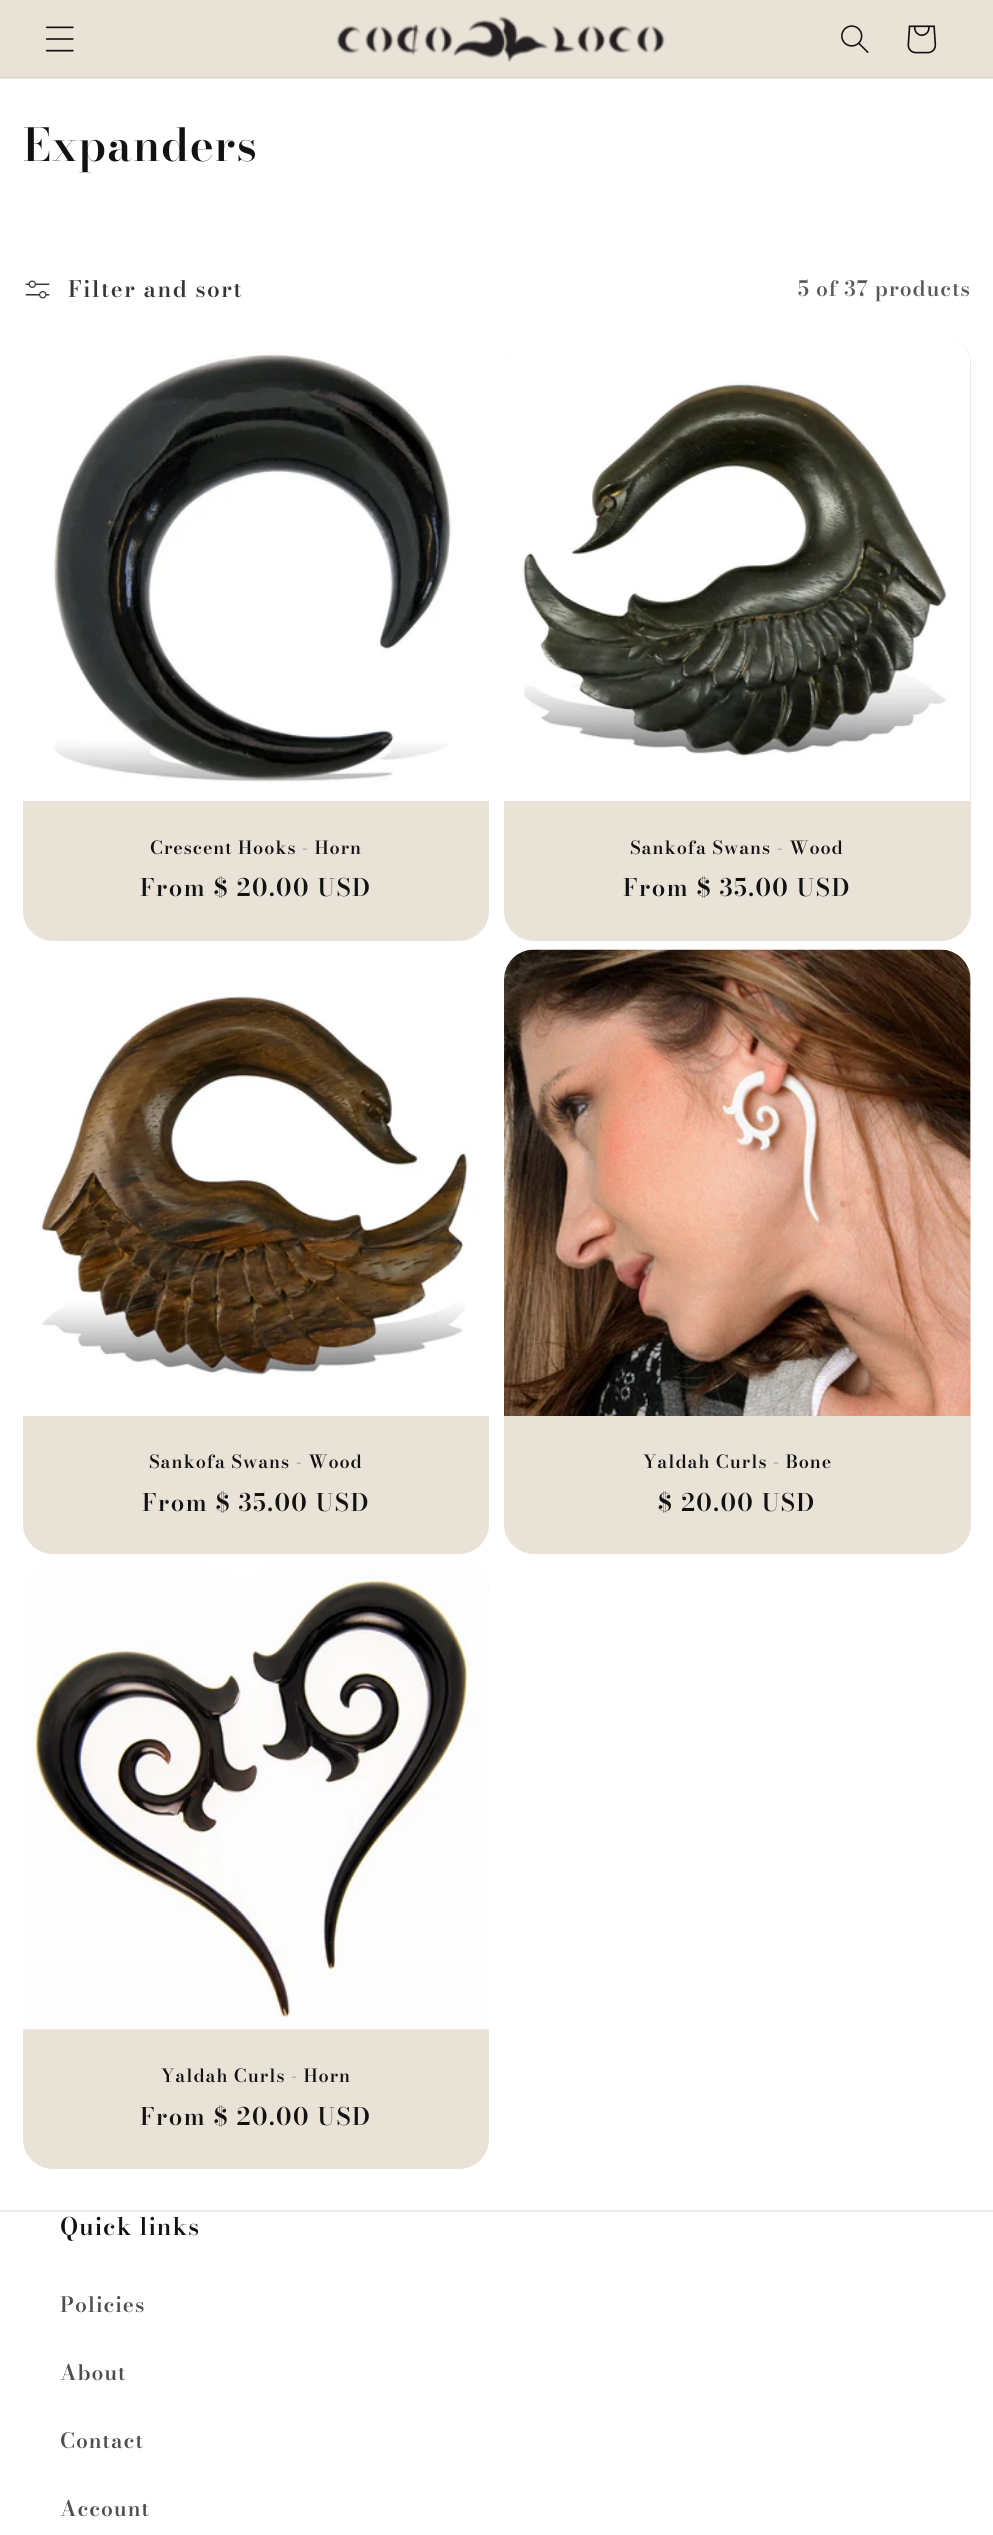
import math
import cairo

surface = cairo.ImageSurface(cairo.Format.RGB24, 993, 2535)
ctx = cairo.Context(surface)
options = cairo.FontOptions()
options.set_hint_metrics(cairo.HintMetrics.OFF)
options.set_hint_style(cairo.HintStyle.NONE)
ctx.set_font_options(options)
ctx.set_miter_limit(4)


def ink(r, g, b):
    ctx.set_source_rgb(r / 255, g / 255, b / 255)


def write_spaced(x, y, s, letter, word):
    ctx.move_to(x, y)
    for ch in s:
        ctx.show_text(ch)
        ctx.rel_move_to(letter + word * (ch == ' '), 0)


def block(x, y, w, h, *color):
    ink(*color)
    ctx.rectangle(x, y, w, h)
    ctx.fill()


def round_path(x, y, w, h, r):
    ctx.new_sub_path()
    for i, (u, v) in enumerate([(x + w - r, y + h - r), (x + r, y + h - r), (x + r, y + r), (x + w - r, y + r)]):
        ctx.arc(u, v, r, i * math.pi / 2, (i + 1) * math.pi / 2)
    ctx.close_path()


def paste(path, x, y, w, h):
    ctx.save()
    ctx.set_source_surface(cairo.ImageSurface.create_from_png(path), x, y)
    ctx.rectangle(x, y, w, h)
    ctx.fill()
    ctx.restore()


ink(255, 255, 255)
ctx.paint()
block(0, 78, 993, 1, 236, 236, 236)
block(0, 0, 993, 77, 233, 226, 215)
block(0, 77, 993, 1, 216, 209, 199)
paste("pic1.png", 45, 26, 29, 26)
paste("pic2.png", 337, 16, 328, 47)
paste("pic3.png", 841, 25, 28, 28)
paste("pic4.png", 907, 25, 30, 29)
ctx.select_font_face("Bodoni Moda SemiBold")
ctx.set_font_size(45)
ink(18, 18, 18)
write_spaced(23, 161, "Expanders", 0.9, 0)
paste("pic5.png", 25, 280, 25, 19)
ctx.select_font_face("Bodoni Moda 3 SemiBold")
ctx.set_font_size(22.5)
ink(54, 54, 54)
write_spaced(68, 297, "Filter and sort", 1.5, 0)
ctx.set_font_size(21)
ink(89, 89, 89)
write_spaced(798, 296, "5 of 37 products", 0.9, 0)
ink(233, 226, 215)
round_path(23, 335, 466, 606, 30)
ctx.fill()
paste("pic6.png", 23, 335, 466, 466)
ctx.set_font_size(18)
ink(18, 18, 18)
write_spaced(150, 854, "Crescent Hooks - Horn", 0.9, 0)
ctx.select_font_face("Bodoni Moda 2 SemiBold")
ctx.set_font_size(24)
write_spaced(140, 896, "From $ 20.00 USD", 1.5, 0)
ink(233, 226, 215)
round_path(504, 335, 467, 606, 30)
ctx.fill()
paste("pic7.png", 504, 335, 467, 466)
ctx.select_font_face("Bodoni Moda 3 SemiBold")
ctx.set_font_size(18)
ink(18, 18, 18)
write_spaced(630, 854, "Sankofa Swans - Wood", 0.9, 0)
ctx.select_font_face("Bodoni Moda 2 SemiBold")
ctx.set_font_size(24)
write_spaced(623, 896, "From $ 35.00 USD", 1.5, 0)
ink(233, 226, 215)
round_path(23, 950, 466, 604, 30)
ctx.fill()
paste("pic8.png", 23, 950, 466, 466)
ctx.select_font_face("Bodoni Moda 3 SemiBold")
ctx.set_font_size(18)
ink(18, 18, 18)
write_spaced(149, 1468, "Sankofa Swans - Wood", 0.9, 0)
ctx.select_font_face("Bodoni Moda 2 SemiBold")
ctx.set_font_size(24)
write_spaced(142, 1511, "From $ 35.00 USD", 1.5, 0)
ink(233, 226, 215)
round_path(504, 950, 467, 604, 30)
ctx.fill()
paste("pic9.png", 504, 949, 467, 467)
ctx.select_font_face("Bodoni Moda 3 SemiBold")
ctx.set_font_size(18)
ink(18, 18, 18)
write_spaced(643, 1468, "Yaldah Curls - Bone", 0.9, 0)
ctx.select_font_face("Bodoni Moda 2 SemiBold")
ctx.set_font_size(24)
write_spaced(658, 1511, "$ 20.00 USD", 1.5, 0)
ink(233, 226, 215)
round_path(23, 1563, 466, 606, 30)
ctx.fill()
paste("pic10.png", 23, 1563, 466, 467)
ctx.select_font_face("Bodoni Moda 3 SemiBold")
ctx.set_font_size(18)
ink(18, 18, 18)
write_spaced(161, 2082, "Yaldah Curls - Horn", 0.9, 0)
ctx.select_font_face("Bodoni Moda 2 SemiBold")
ctx.set_font_size(24)
write_spaced(140, 2125, "From $ 20.00 USD", 1.5, 0)
block(0, 2210, 993, 2, 236, 236, 236)
ink(18, 18, 18)
write_spaced(60, 2235, "Quick links", 0.9, 0)
ctx.select_font_face("Bodoni Moda 3 SemiBold")
ctx.set_font_size(21)
ink(77, 77, 77)
write_spaced(60, 2312, "Policies", 0.9, 0)
write_spaced(60, 2380, "About", 0.9, 0)
write_spaced(60, 2448, "Contact", 0.9, 0)
write_spaced(60, 2516, "Account", 0.9, 0)
surface.write_to_png("screenshot.png")
